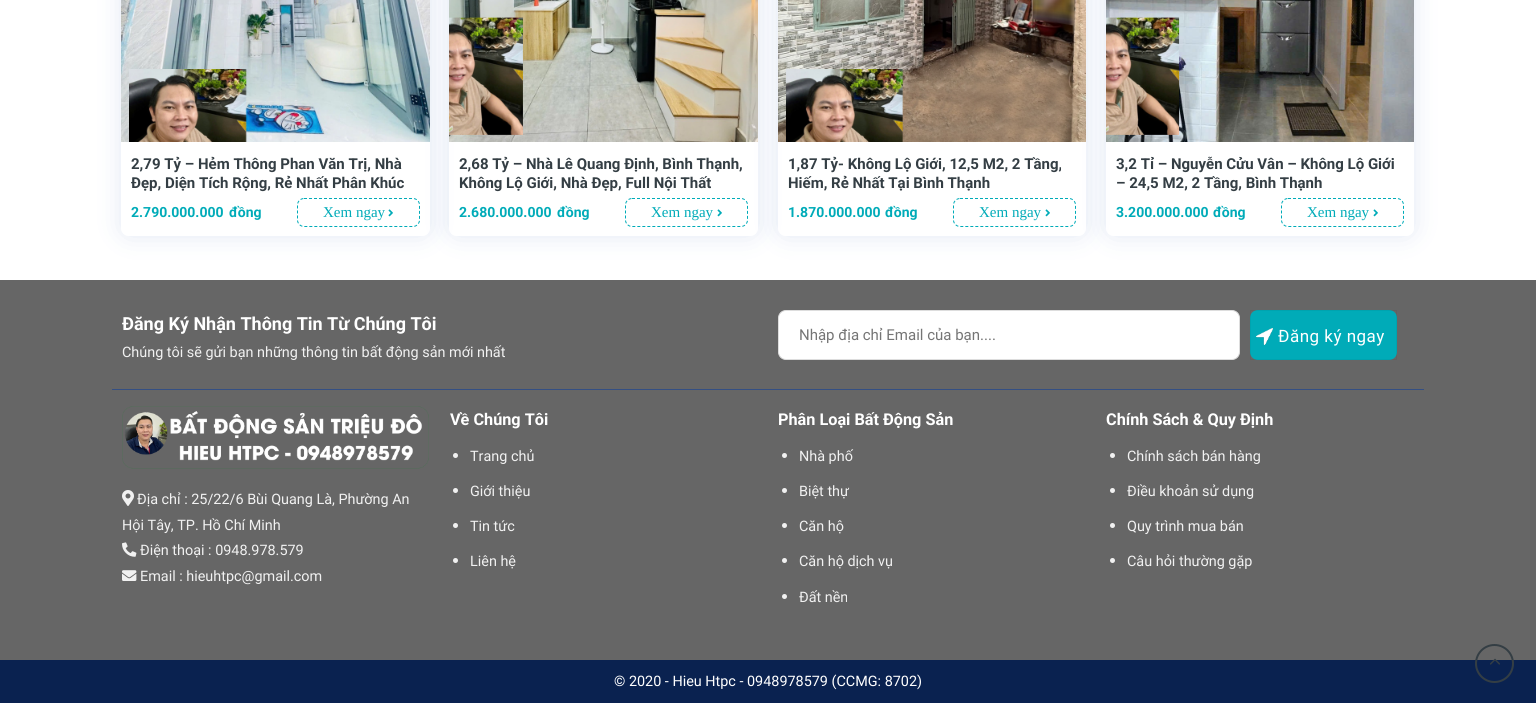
import math
import cairo

surface = cairo.ImageSurface(cairo.Format.RGB24, 1536, 703)
ctx = cairo.Context(surface)
options = cairo.FontOptions()
options.set_hint_metrics(cairo.HintMetrics.OFF)
options.set_hint_style(cairo.HintStyle.NONE)
ctx.set_font_options(options)
ctx.set_miter_limit(4)


def ink(r, g, b):
    ctx.set_source_rgb(r / 255, g / 255, b / 255)


def write(x, y, s, family, size, color, bold=False, italic=False):
    ctx.select_font_face(family, cairo.FontSlant.ITALIC if italic else cairo.FontSlant.NORMAL, cairo.FontWeight.BOLD if bold else cairo.FontWeight.NORMAL)
    ctx.set_font_size(size)
    ink(*color)
    ctx.move_to(x, y)
    ctx.show_text(s)


def write_spaced(x, y, s, letter, word):
    ctx.move_to(x, y)
    for ch in s:
        ctx.show_text(ch)
        ctx.rel_move_to(letter + word * (ch == ' '), 0)


def block(x, y, w, h, *color):
    ink(*color)
    ctx.rectangle(x, y, w, h)
    ctx.fill()


def round_path(x, y, w, h, r):
    ctx.new_sub_path()
    for i, (u, v) in enumerate([(x + w - r, y + h - r), (x + r, y + h - r), (x + r, y + r), (x + w - r, y + r)]):
        ctx.arc(u, v, r, i * math.pi / 2, (i + 1) * math.pi / 2)
    ctx.close_path()


def blur_box(x, y, w, h, r, blur, alpha):
    ctx.push_group_with_content(cairo.Content.ALPHA)
    ctx.set_operator(cairo.Operator.SOURCE)
    for i in range(15, -16, -2):
        e = blur * i / 6
        if min(w, h) + 2 * e > 0:
            ctx.set_source_rgba(0, 0, 0, alpha * math.erfc((i - 1) / 8.5) / 2)
            round_path(x - e, y - e, w + 2 * e, h + 2 * e, max(0, min(r + e + blur * .6, min(w, h) / 2 + e)))
            ctx.fill()
    ctx.mask(ctx.pop_group())


def paste(path, x, y, w, h):
    ctx.save()
    ctx.set_source_surface(cairo.ImageSurface.create_from_png(path), x, y)
    ctx.rectangle(x, y, w, h)
    ctx.fill()
    ctx.restore()


s1 = dict(family="Roboto", size=15, color=(52, 62, 68), bold=True)
s2 = dict(family="Roboto", size=14, color=(0, 171, 184), bold=True)
s3 = dict(family="Liberation Serif", size=15, color=(0, 171, 184))
s4 = dict(family="Roboto", size=18, color=(255, 255, 255), bold=True)
s5 = dict(family="Roboto", size=14.4, color=(241, 241, 241))
s6 = dict(family="Roboto", size=15, color=(117, 117, 117))
s7 = dict(family="Roboto", size=16.25, color=(255, 255, 255), bold=True)
s8 = dict(family="Roboto", size=14.4, color=(255, 255, 255))

ink(255, 255, 255)
ctx.paint()
ctx.save()
ctx.set_fill_rule(cairo.FillRule.EVEN_ODD)
ctx.new_path()
ctx.move_to(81, 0)
ctx.line_to(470, 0)
ctx.line_to(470, 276)
ctx.line_to(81, 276)
ctx.close_path()
ctx.move_to(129, -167)
ctx.line_to(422, -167)
ctx.curve_to(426.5, -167, 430, -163.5, 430, -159)
ctx.line_to(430, 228)
ctx.curve_to(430, 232.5, 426.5, 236, 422, 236)
ctx.line_to(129, 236)
ctx.curve_to(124.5, 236, 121, 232.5, 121, 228)
ctx.line_to(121, -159)
ctx.curve_to(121, -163.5, 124.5, -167, 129, -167)
ctx.close_path()
ctx.clip()
ink(22, 73, 172)
blur_box(121, -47, 309, 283, 8, 13, 0.12)
ctx.restore()
paste("pic1.png", 121, 0, 309, 142)
write(131, 169, "2,79 Tỷ – Hẻm Thông Phan Văn Trị, Nhà", **s1)
write(131, 188, "Đẹp, Diện Tích Rộng, Rẻ Nhất Phân Khúc", **s1)
write(131, 217, "2.790.000.000", **s2)
write(229, 217, "đồng", **s2)
ctx.new_path()
ctx.move_to(304, 198.5)
ctx.line_to(413, 198.5)
ctx.curve_to(416.5, 198.5, 419.5, 201.5, 419.5, 205)
ctx.line_to(419.5, 220)
ctx.curve_to(419.5, 223.5, 416.5, 226.5, 413, 226.5)
ctx.line_to(304, 226.5)
ctx.curve_to(300.5, 226.5, 297.5, 223.5, 297.5, 220)
ctx.line_to(297.5, 205)
ctx.curve_to(297.5, 201.5, 300.5, 198.5, 304, 198.5)
ctx.close_path()
ctx.set_line_width(1)
ctx.set_dash([3, 2])
ctx.stroke()
write(323, 217, "Xem ngay", **s3)
paste("pic2.png", 388, 209, 5, 8)
ctx.save()
ctx.set_fill_rule(cairo.FillRule.EVEN_ODD)
ctx.new_path()
ctx.move_to(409, 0)
ctx.line_to(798, 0)
ctx.line_to(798, 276)
ctx.line_to(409, 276)
ctx.close_path()
ctx.move_to(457, -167)
ctx.line_to(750, -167)
ctx.curve_to(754.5, -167, 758, -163.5, 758, -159)
ctx.line_to(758, 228)
ctx.curve_to(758, 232.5, 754.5, 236, 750, 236)
ctx.line_to(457, 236)
ctx.curve_to(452.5, 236, 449, 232.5, 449, 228)
ctx.line_to(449, -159)
ctx.curve_to(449, -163.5, 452.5, -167, 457, -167)
ctx.close_path()
ctx.clip()
ink(22, 73, 172)
blur_box(449, -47, 309, 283, 8, 13, 0.12)
ctx.restore()
paste("pic3.png", 449, 0, 309, 142)
write(459, 169, "2,68 Tỷ – Nhà Lê Quang Định, Bình Thạnh,", **s1)
write(459, 188, "Không Lộ Giới, Nhà Đẹp, Full Nội Thất", **s1)
write(459, 217, "2.680.000.000", **s2)
write(557, 217, "đồng", **s2)
ctx.new_path()
ctx.move_to(632, 198.5)
ctx.line_to(741, 198.5)
ctx.curve_to(744.5, 198.5, 747.5, 201.5, 747.5, 205)
ctx.line_to(747.5, 220)
ctx.curve_to(747.5, 223.5, 744.5, 226.5, 741, 226.5)
ctx.line_to(632, 226.5)
ctx.curve_to(628.5, 226.5, 625.5, 223.5, 625.5, 220)
ctx.line_to(625.5, 205)
ctx.curve_to(625.5, 201.5, 628.5, 198.5, 632, 198.5)
ctx.close_path()
ctx.stroke()
write(651, 217, "Xem ngay", **s3)
paste("pic2.png", 717, 209, 5, 8)
ctx.save()
ctx.set_fill_rule(cairo.FillRule.EVEN_ODD)
ctx.new_path()
ctx.move_to(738, 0)
ctx.line_to(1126, 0)
ctx.line_to(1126, 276)
ctx.line_to(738, 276)
ctx.close_path()
ctx.move_to(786, -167)
ctx.line_to(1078, -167)
ctx.curve_to(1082.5, -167, 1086, -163.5, 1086, -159)
ctx.line_to(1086, 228)
ctx.curve_to(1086, 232.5, 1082.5, 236, 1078, 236)
ctx.line_to(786, 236)
ctx.curve_to(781.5, 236, 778, 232.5, 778, 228)
ctx.line_to(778, -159)
ctx.curve_to(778, -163.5, 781.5, -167, 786, -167)
ctx.close_path()
ctx.clip()
ink(22, 73, 172)
blur_box(778, -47, 308, 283, 8, 13, 0.12)
ctx.restore()
paste("pic4.png", 778, 0, 308, 142)
write(788, 169, "1,87 Tỷ- Không Lộ Giới, 12,5 M2, 2 Tầng,", **s1)
write(788, 188, "Hiếm, Rẻ Nhất Tại Bình Thạnh", **s1)
write(788, 217, "1.870.000.000", **s2)
write(885, 217, "đồng", **s2)
ctx.new_path()
ctx.move_to(960, 198.5)
ctx.line_to(1069, 198.5)
ctx.curve_to(1072.5, 198.5, 1075.5, 201.5, 1075.5, 205)
ctx.line_to(1075.5, 220)
ctx.curve_to(1075.5, 223.5, 1072.5, 226.5, 1069, 226.5)
ctx.line_to(960, 226.5)
ctx.curve_to(956.5, 226.5, 953.5, 223.5, 953.5, 220)
ctx.line_to(953.5, 205)
ctx.curve_to(953.5, 201.5, 956.5, 198.5, 960, 198.5)
ctx.close_path()
ctx.stroke()
write(979, 217, "Xem ngay", **s3)
paste("pic2.png", 1045, 209, 5, 8)
ctx.save()
ctx.set_fill_rule(cairo.FillRule.EVEN_ODD)
ctx.new_path()
ctx.move_to(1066, 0)
ctx.line_to(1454, 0)
ctx.line_to(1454, 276)
ctx.line_to(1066, 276)
ctx.close_path()
ctx.move_to(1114, -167)
ctx.line_to(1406, -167)
ctx.curve_to(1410.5, -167, 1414, -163.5, 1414, -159)
ctx.line_to(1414, 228)
ctx.curve_to(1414, 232.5, 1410.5, 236, 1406, 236)
ctx.line_to(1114, 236)
ctx.curve_to(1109.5, 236, 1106, 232.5, 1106, 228)
ctx.line_to(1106, -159)
ctx.curve_to(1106, -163.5, 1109.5, -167, 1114, -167)
ctx.close_path()
ctx.clip()
ink(22, 73, 172)
blur_box(1106, -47, 308, 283, 8, 13, 0.12)
ctx.restore()
paste("pic5.png", 1106, 0, 308, 142)
write(1116, 169, "3,2 Tỉ – Nguyễn Cửu Vân – Không Lộ Giới", **s1)
write(1116, 188, "– 24,5 M2, 2 Tầng, Bình Thạnh", **s1)
write(1116, 217, "3.200.000.000", **s2)
write(1213, 217, "đồng", **s2)
ctx.new_path()
ctx.move_to(1288, 198.5)
ctx.line_to(1397, 198.5)
ctx.curve_to(1400.5, 198.5, 1403.5, 201.5, 1403.5, 205)
ctx.line_to(1403.5, 220)
ctx.curve_to(1403.5, 223.5, 1400.5, 226.5, 1397, 226.5)
ctx.line_to(1288, 226.5)
ctx.curve_to(1284.5, 226.5, 1281.5, 223.5, 1281.5, 220)
ctx.line_to(1281.5, 205)
ctx.curve_to(1281.5, 201.5, 1284.5, 198.5, 1288, 198.5)
ctx.close_path()
ctx.stroke()
write(1307, 217, "Xem ngay", **s3)
paste("pic2.png", 1373, 209, 5, 8)
block(0, 280, 1536, 380, 102, 102, 102)
write(122, 330, "Đăng Ký Nhận Thông Tin Từ Chúng Tôi", **s4)
write(122, 357, "Chúng tôi sẽ gửi bạn những thông tin bất động sản mới nhất", **s5)
block(112, 389, 1312, 1, 52, 79, 131)
ink(255, 255, 255)
round_path(778.5, 310.5, 461, 49, 7.5)
ctx.fill_preserve()
ink(221, 221, 221)
ctx.set_dash([])
ctx.stroke()
write(799, 340, "Nhập địa chỉ Email của bạn....", **s6)
ink(0, 171, 184)
round_path(1250, 310, 147, 50, 8)
ctx.fill()
paste("pic6.png", 1256, 328, 17, 17)
ctx.rectangle(1250.5, 310.5, 146, 49)
ctx.set_source_rgba(0, 0, 0, 0.05)
ctx.stroke()
ctx.set_font_size(17)
ink(255, 255, 255)
write_spaced(1278, 342, "Đăng ký ngay", 0.5, 0)
paste("pic7.png", 122, 406, 307, 63)
paste("pic8.png", 122, 490, 12, 16)
write(137, 504, "Địa chỉ : 25/22/6 Bùi Quang Là, Phường An", **s5)
write(122, 530, "Hội Tây, TP. Hồ Chí Minh", **s5)
paste("pic9.png", 122, 542, 15, 15)
write(140, 555, "Điện thoại : 0948.978.579", **s5)
paste("pic10.png", 122, 570, 15, 11)
write(140, 581, "Email : hieuhtpc@gmail.com", **s5)
write(450, 425, "Về Chúng Tôi", **s7)
ink(241, 241, 241)
ctx.new_path()
ctx.arc(455.5, 455.5, 2.5, 0, 2 * math.pi)
ctx.fill()
write(470, 461, "Trang chủ", **s5)
ctx.new_path()
ctx.arc(455.5, 490.5, 2.5, 0, 2 * math.pi)
ctx.fill()
write(470, 496, "Giới thiệu", **s5)
ctx.new_path()
ctx.arc(455.5, 525.5, 2.5, 0, 2 * math.pi)
ctx.fill()
write(470, 531, "Tin tức", **s5)
ctx.new_path()
ctx.arc(455.5, 560.5, 2.5, 0, 2 * math.pi)
ctx.fill()
write(470, 566, "Liên hệ", **s5)
write(778, 425, "Phân Loại Bất Động Sản", **s7)
ink(241, 241, 241)
ctx.new_path()
ctx.arc(784.5, 455.5, 2.5, 0, 2 * math.pi)
ctx.fill()
write(799, 461, "Nhà phố", **s5)
ctx.new_path()
ctx.arc(784.5, 490.5, 2.5, 0, 2 * math.pi)
ctx.fill()
write(799, 496, "Biệt thự", **s5)
ctx.new_path()
ctx.arc(784.5, 525.5, 2.5, 0, 2 * math.pi)
ctx.fill()
write(799, 531, "Căn hộ", **s5)
ctx.new_path()
ctx.arc(784.5, 560.5, 2.5, 0, 2 * math.pi)
ctx.fill()
write(799, 566, "Căn hộ dịch vụ", **s5)
ctx.new_path()
ctx.arc(784.5, 596.5, 2.5, 0, 2 * math.pi)
ctx.fill()
write(799, 602, "Đất nền", **s5)
write(1106, 425, "Chính Sách & Quy Định", **s7)
ink(241, 241, 241)
ctx.new_path()
ctx.arc(1112.5, 455.5, 2.5, 0, 2 * math.pi)
ctx.fill()
write(1127, 461, "Chính sách bán hàng", **s5)
ctx.new_path()
ctx.arc(1112.5, 490.5, 2.5, 0, 2 * math.pi)
ctx.fill()
write(1127, 496, "Điều khoản sử dụng", **s5)
ctx.new_path()
ctx.arc(1112.5, 525.5, 2.5, 0, 2 * math.pi)
ctx.fill()
write(1127, 531, "Quy trình mua bán", **s5)
ctx.new_path()
ctx.arc(1112.5, 560.5, 2.5, 0, 2 * math.pi)
ctx.fill()
write(1127, 566, "Câu hỏi thường gặp", **s5)
block(0, 660, 1536, 43, 10, 34, 80)
write(614, 686, "© 2020 - Hieu Htpc - 0948978579 (CCMG: 8702)", **s8)
ctx.new_path()
ctx.arc(1494.5, 663.5, 18.5, 0, 2 * math.pi)
ink(52, 62, 68)
ctx.set_line_width(2)
ctx.stroke()
paste("pic11.png", 1490, 658, 10, 7)
surface.write_to_png("screenshot.png")
